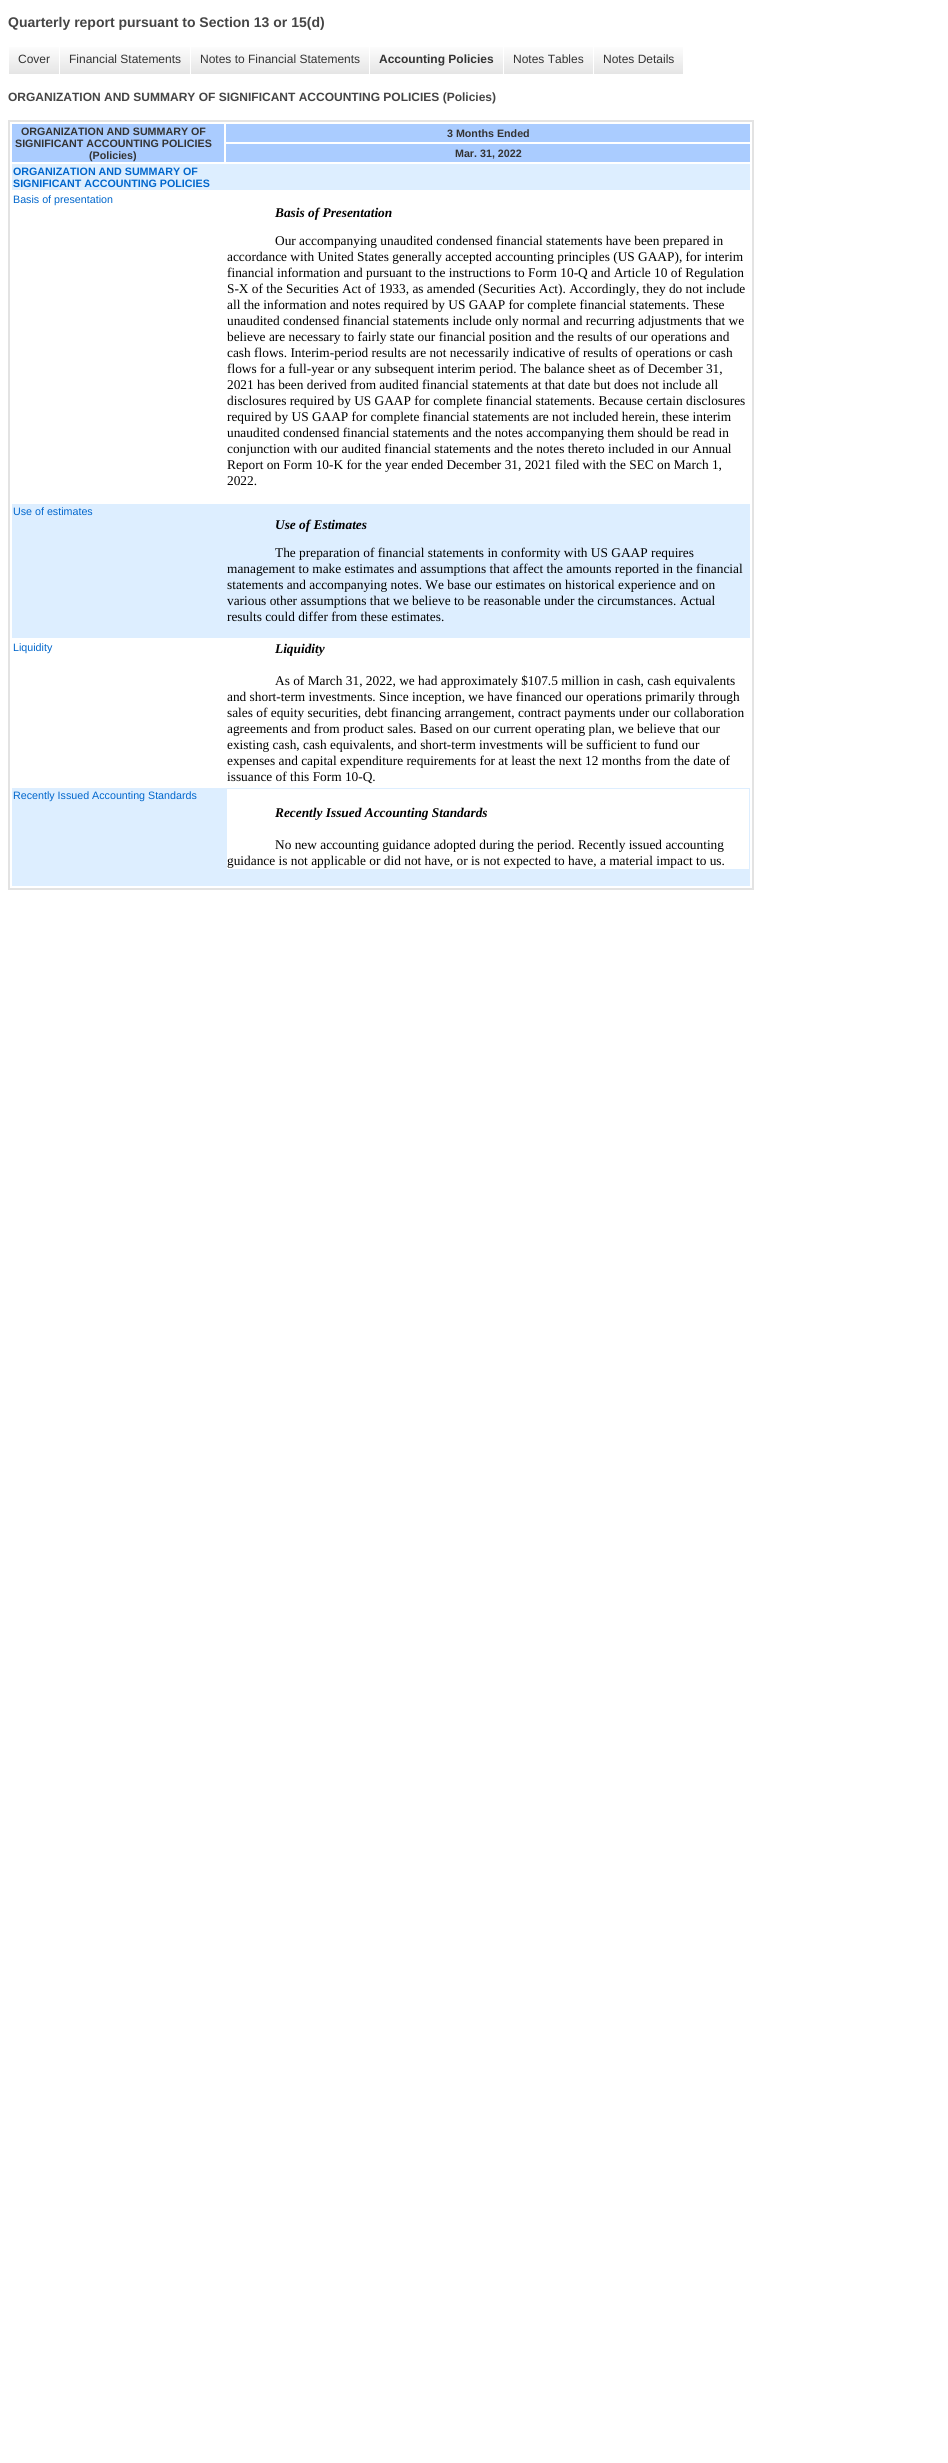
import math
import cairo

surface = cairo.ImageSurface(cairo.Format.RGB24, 948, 2463)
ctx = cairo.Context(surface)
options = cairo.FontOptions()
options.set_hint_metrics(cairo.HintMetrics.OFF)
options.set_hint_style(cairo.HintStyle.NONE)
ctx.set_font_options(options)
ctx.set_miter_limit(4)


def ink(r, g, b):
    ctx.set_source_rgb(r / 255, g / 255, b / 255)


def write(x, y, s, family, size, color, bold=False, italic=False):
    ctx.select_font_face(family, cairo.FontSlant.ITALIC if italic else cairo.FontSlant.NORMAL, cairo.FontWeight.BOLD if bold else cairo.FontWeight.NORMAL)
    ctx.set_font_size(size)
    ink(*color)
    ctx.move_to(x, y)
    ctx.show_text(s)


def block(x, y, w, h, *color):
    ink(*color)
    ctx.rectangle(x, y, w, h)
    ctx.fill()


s1 = dict(family="Liberation Sans", size=14, color=(69, 69, 69), bold=True)
s2 = dict(family="Liberation Sans", size=12, color=(51, 51, 51))
s3 = dict(family="Liberation Sans", size=12, color=(51, 51, 51), bold=True)
s4 = dict(family="Liberation Sans", size=12, color=(69, 69, 69), bold=True)
s5 = dict(family="Liberation Sans", size=10.7, color=(51, 51, 51), bold=True)
s6 = dict(family="Liberation Sans", size=10.7, color=(0, 102, 204), bold=True)
s7 = dict(family="Liberation Sans", size=10.7, color=(0, 102, 204))
s8 = dict(family="Liberation Serif", size=13.35, color=(0, 0, 0), bold=True, italic=True)
s9 = dict(family="Liberation Serif", size=13.35, color=(0, 0, 0))

ink(255, 255, 255)
ctx.paint()
write(8, 27, "Quarterly report pursuant to Section 13 or 15(d)", **s1)
gradient = cairo.LinearGradient(34, 44, 34, 74)
gradient.add_color_stop_rgba(0, 1, 1, 1, 1)
gradient.add_color_stop_rgba(1, 0.898, 0.898, 0.898, 1)
ctx.set_source(gradient)
ctx.rectangle(9, 47, 50, 27)
ctx.fill()
write(18, 63, "Cover", **s2)
gradient = cairo.LinearGradient(125, 44, 125, 74)
gradient.add_color_stop_rgba(0, 1, 1, 1, 1)
gradient.add_color_stop_rgba(1, 0.898, 0.898, 0.898, 1)
ctx.set_source(gradient)
ctx.rectangle(60, 47, 130, 27)
ctx.fill()
write(69, 63, "Financial Statements", **s2)
gradient = cairo.LinearGradient(280, 44, 280, 74)
gradient.add_color_stop_rgba(0, 1, 1, 1, 1)
gradient.add_color_stop_rgba(1, 0.898, 0.898, 0.898, 1)
ctx.set_source(gradient)
ctx.rectangle(191, 47, 178, 27)
ctx.fill()
write(200, 63, "Notes to Financial Statements", **s2)
gradient = cairo.LinearGradient(437, 44, 437, 74)
gradient.add_color_stop_rgba(0, 1, 1, 1, 1)
gradient.add_color_stop_rgba(1, 0.898, 0.898, 0.898, 1)
ctx.set_source(gradient)
ctx.rectangle(370, 47, 133, 27)
ctx.fill()
write(379, 63, "Accounting Policies", **s3)
gradient = cairo.LinearGradient(549, 44, 549, 74)
gradient.add_color_stop_rgba(0, 1, 1, 1, 1)
gradient.add_color_stop_rgba(1, 0.898, 0.898, 0.898, 1)
ctx.set_source(gradient)
ctx.rectangle(504, 47, 89, 27)
ctx.fill()
write(513, 63, "Notes Tables", **s2)
gradient = cairo.LinearGradient(639, 44, 639, 74)
gradient.add_color_stop_rgba(0, 1, 1, 1, 1)
gradient.add_color_stop_rgba(1, 0.898, 0.898, 0.898, 1)
ctx.set_source(gradient)
ctx.rectangle(594, 47, 89, 27)
ctx.fill()
write(603, 63, "Notes Details", **s2)
write(8, 101, "ORGANIZATION AND SUMMARY OF SIGNIFICANT ACCOUNTING POLICIES (Policies)", **s4)
ctx.rectangle(9, 121, 744, 768)
ink(227, 227, 227)
ctx.stroke()
block(12, 124, 212, 38, 170, 204, 255)
write(21, 135, "ORGANIZATION AND SUMMARY OF", **s5)
write(15, 147, "SIGNIFICANT ACCOUNTING POLICIES", **s5)
write(89, 159, "(Policies)", **s5)
block(226, 124, 524, 18, 170, 204, 255)
write(447, 137, "3 Months Ended", **s5)
block(226, 144, 524, 18, 170, 204, 255)
write(455, 157, "Mar. 31, 2022", **s5)
block(12, 164, 738, 26, 221, 238, 255)
write(13, 175, "ORGANIZATION AND SUMMARY OF", **s6)
write(13, 187, "SIGNIFICANT ACCOUNTING POLICIES", **s6)
write(13, 203, "Basis of presentation", **s7)
write(275, 217, "Basis of Presentation", **s8)
write(275, 245, "Our accompanying unaudited condensed financial statements have been prepared in", **s9)
write(227, 261, "accordance with United States generally accepted accounting principles (US GAAP), for interim", **s9)
write(227, 277, "financial information and pursuant to the instructions to Form 10-Q and Article 10 of Regulation", **s9)
write(227, 293, "S-X of the Securities Act of 1933, as amended (Securities Act). Accordingly, they do not include", **s9)
write(227, 309, "all the information and notes required by US GAAP for complete financial statements. These", **s9)
write(227, 325, "unaudited condensed financial statements include only normal and recurring adjustments that we", **s9)
write(227, 341, "believe are necessary to fairly state our financial position and the results of our operations and", **s9)
write(227, 357, "cash flows. Interim-period results are not necessarily indicative of results of operations or cash", **s9)
write(227, 373, "flows for a full-year or any subsequent interim period. The balance sheet as of December 31,", **s9)
write(227, 389, "2021 has been derived from audited financial statements at that date but does not include all", **s9)
write(227, 405, "disclosures required by US GAAP for complete financial statements. Because certain disclosures", **s9)
write(227, 421, "required by US GAAP for complete financial statements are not included herein, these interim", **s9)
write(227, 437, "unaudited condensed financial statements and the notes accompanying them should be read in", **s9)
write(227, 453, "conjunction with our audited financial statements and the notes thereto included in our Annual", **s9)
write(227, 469, "Report on Form 10-K for the year ended December 31, 2021 filed with the SEC on March 1,", **s9)
write(227, 485, "2022.", **s9)
block(12, 504, 738, 134, 221, 238, 255)
write(13, 515, "Use of estimates", **s7)
write(275, 529, "Use of Estimates", **s8)
write(275, 557, "The preparation of financial statements in conformity with US GAAP requires", **s9)
write(227, 573, "management to make estimates and assumptions that affect the amounts reported in the financial", **s9)
write(227, 589, "statements and accompanying notes. We base our estimates on historical experience and on", **s9)
write(227, 605, "various other assumptions that we believe to be reasonable under the circumstances. Actual", **s9)
write(227, 621, "results could differ from these estimates.", **s9)
write(13, 651, "Liquidity", **s7)
write(275, 653, "Liquidity", **s8)
write(275, 685, "As of March 31, 2022, we had approximately $107.5 million in cash, cash equivalents", **s9)
write(227, 701, "and short-term investments. Since inception, we have financed our operations primarily through", **s9)
write(227, 717, "sales of equity securities, debt financing arrangement, contract payments under our collaboration", **s9)
write(227, 733, "agreements and from product sales. Based on our current operating plan, we believe that our", **s9)
write(227, 749, "existing cash, cash equivalents, and short-term investments will be sufficient to fund our", **s9)
write(227, 765, "expenses and capital expenditure requirements for at least the next 12 months from the date of", **s9)
write(227, 781, "issuance of this Form 10-Q.", **s9)
block(12, 788, 738, 98, 221, 238, 255)
write(13, 799, "Recently Issued Accounting Standards", **s7)
block(227, 789, 522, 80, 255, 255, 255)
write(275, 817, "Recently Issued Accounting Standards", **s8)
write(275, 849, "No new accounting guidance adopted during the period. Recently issued accounting", **s9)
write(227, 865, "guidance is not applicable or did not have, or is not expected to have, a material impact to us.", **s9)
surface.write_to_png("screenshot.png")
